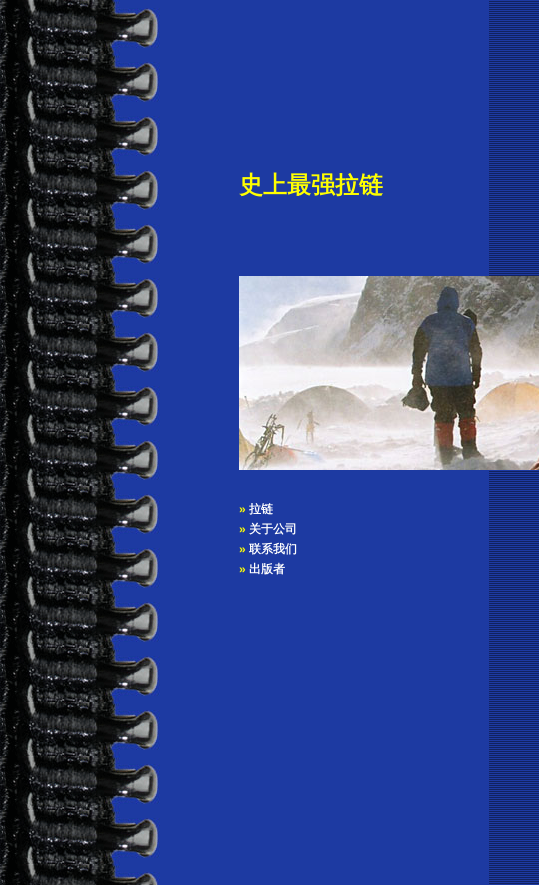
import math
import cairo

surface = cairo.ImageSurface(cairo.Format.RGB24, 539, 885)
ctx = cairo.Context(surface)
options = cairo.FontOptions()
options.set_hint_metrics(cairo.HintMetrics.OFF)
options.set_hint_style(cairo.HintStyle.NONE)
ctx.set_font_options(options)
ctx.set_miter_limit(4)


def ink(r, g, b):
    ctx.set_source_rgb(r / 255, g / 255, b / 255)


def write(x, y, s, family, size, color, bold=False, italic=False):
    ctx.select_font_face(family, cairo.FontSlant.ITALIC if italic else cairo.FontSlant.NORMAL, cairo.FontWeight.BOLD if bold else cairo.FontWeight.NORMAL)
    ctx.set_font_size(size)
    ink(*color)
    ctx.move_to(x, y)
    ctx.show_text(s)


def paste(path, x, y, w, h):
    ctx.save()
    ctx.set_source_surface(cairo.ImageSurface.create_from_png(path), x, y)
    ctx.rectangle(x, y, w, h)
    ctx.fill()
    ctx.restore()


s1 = dict(family="WenQuanYi Zen Hei", size=24, color=(255, 255, 0), bold=True)
s2 = dict(family="Liberation Sans", size=12, color=(255, 255, 0), bold=True)
s3 = dict(family="WenQuanYi Zen Hei", size=12, color=(255, 255, 255), bold=True)

ink(255, 255, 255)
ctx.paint()
paste("pic1.png", 0, 0, 539, 885)
write(239, 193, "史上最强拉链", **s1)
paste("pic2.png", 239, 276, 300, 194)
write(239, 513, "»", **s2)
write(249, 513, "拉链", **s3)
write(239, 533, "»", **s2)
write(249, 533, "关于公司", **s3)
write(239, 553, "»", **s2)
write(249, 553, "联系我们", **s3)
write(239, 573, "»", **s2)
write(249, 573, "出版者", **s3)
surface.write_to_png("screenshot.png")
